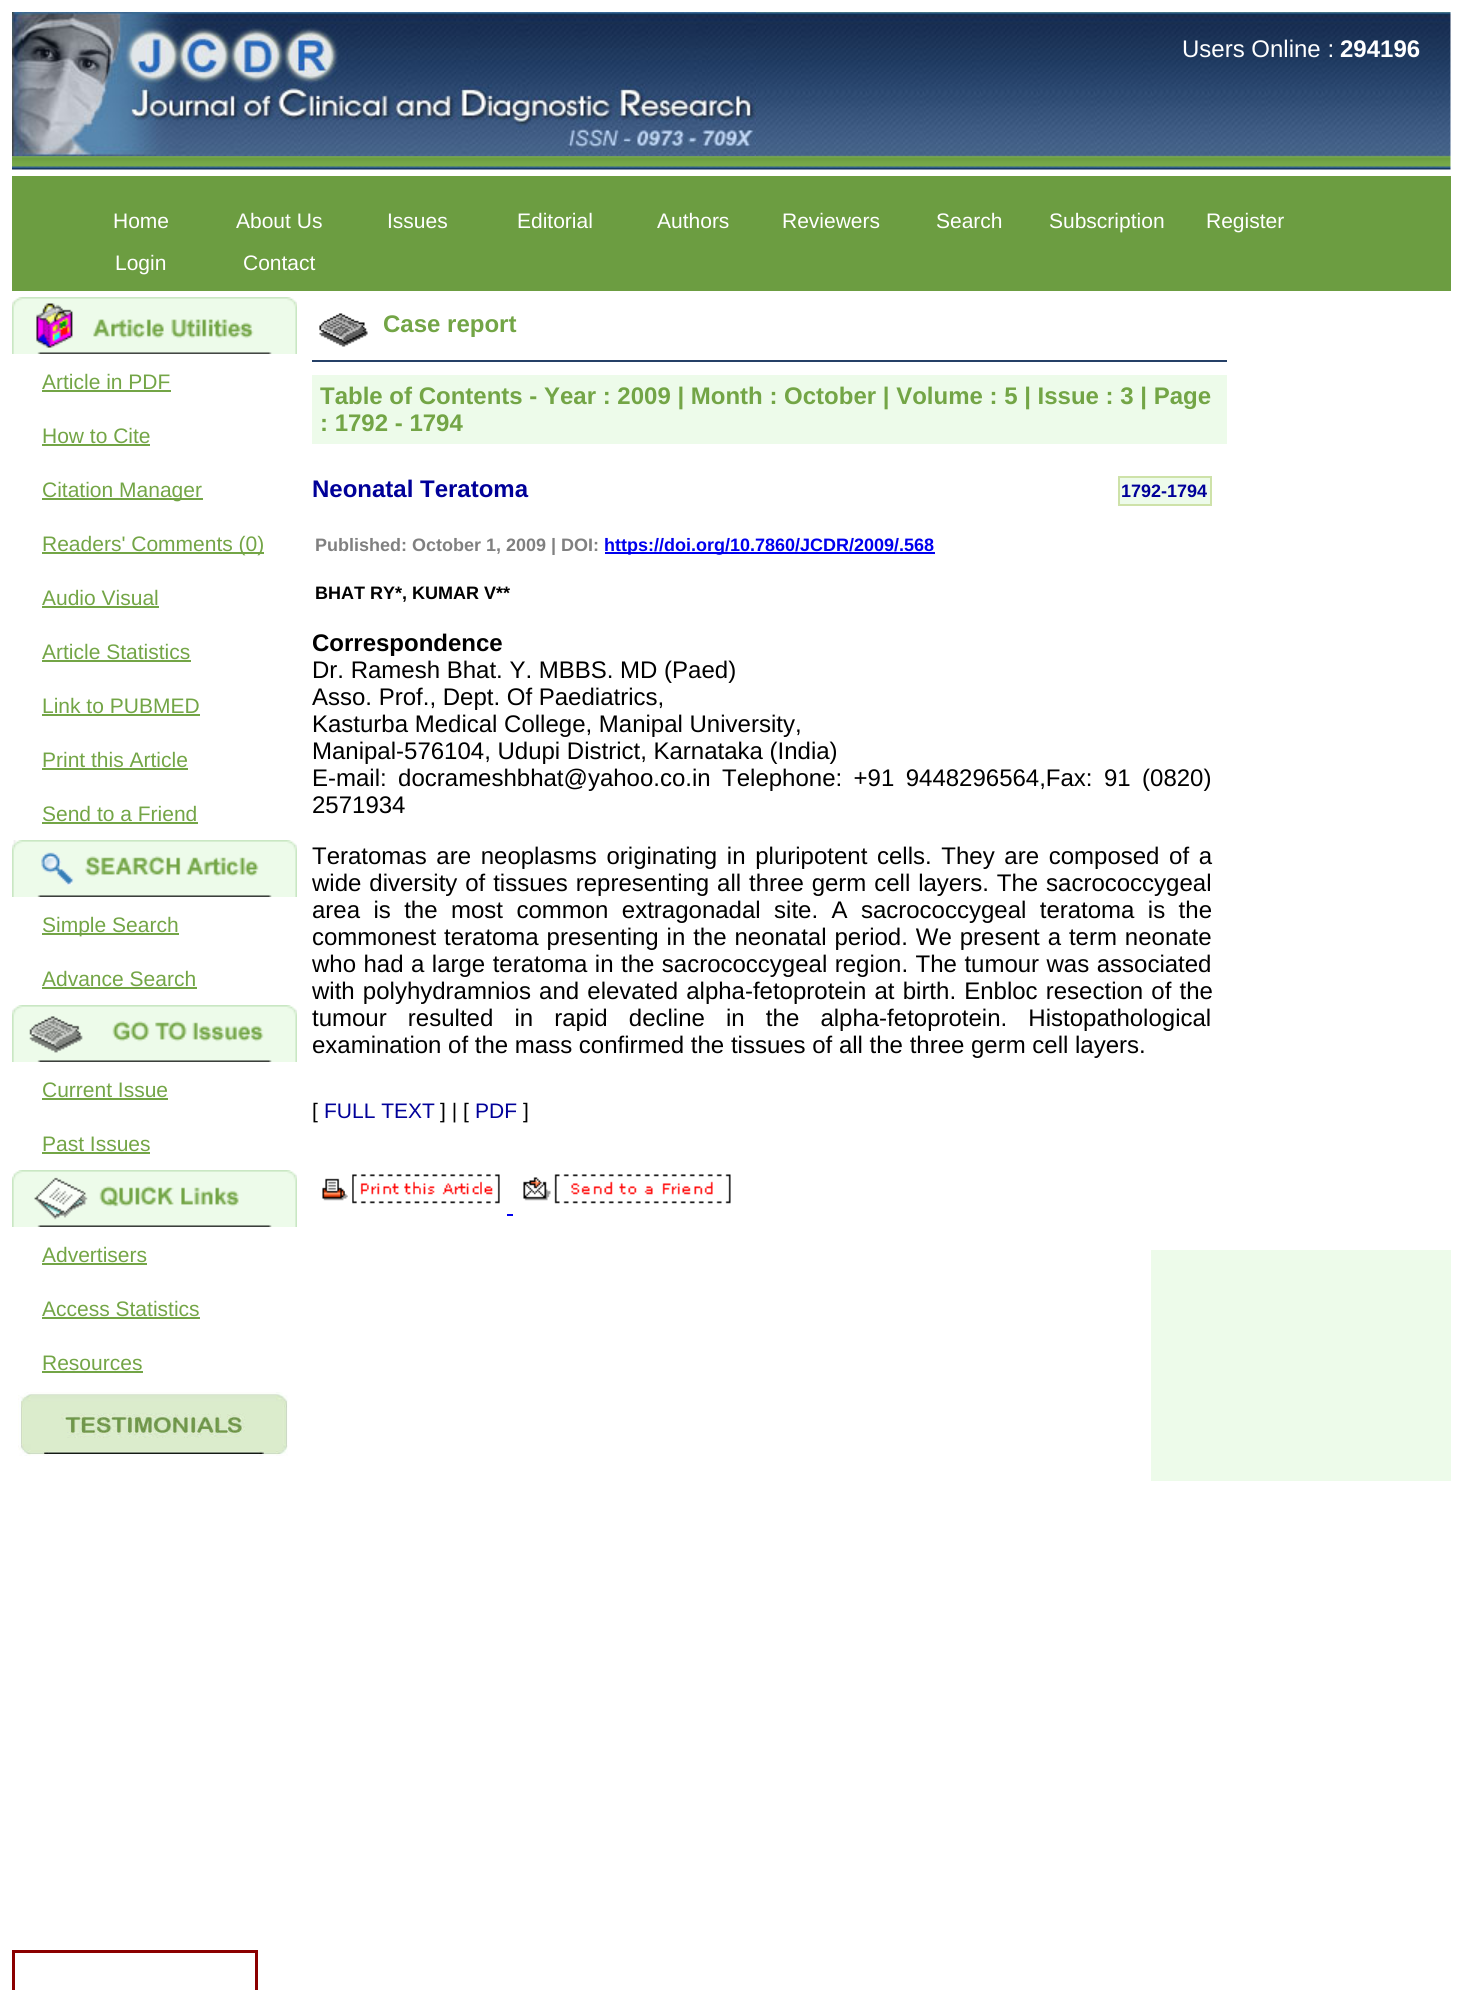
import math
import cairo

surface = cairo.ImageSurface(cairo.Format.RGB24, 1462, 1990)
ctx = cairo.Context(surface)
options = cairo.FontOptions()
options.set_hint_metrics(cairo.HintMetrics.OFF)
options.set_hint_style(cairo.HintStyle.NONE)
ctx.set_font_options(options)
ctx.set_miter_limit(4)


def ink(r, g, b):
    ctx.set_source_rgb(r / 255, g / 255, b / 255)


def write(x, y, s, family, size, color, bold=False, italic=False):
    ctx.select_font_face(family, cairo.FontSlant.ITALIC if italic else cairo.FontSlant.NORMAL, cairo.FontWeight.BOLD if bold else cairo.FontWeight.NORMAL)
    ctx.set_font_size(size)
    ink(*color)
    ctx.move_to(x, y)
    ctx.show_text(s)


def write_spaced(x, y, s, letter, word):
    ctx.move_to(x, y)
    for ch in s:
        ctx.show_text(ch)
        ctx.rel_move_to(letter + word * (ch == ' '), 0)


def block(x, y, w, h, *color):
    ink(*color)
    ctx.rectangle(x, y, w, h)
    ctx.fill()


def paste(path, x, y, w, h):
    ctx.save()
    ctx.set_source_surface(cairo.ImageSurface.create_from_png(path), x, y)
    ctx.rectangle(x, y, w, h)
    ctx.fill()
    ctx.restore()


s1 = dict(family="Liberation Sans", size=24, color=(255, 255, 255))
s2 = dict(family="Liberation Sans", size=24, color=(255, 255, 255), bold=True)
s3 = dict(family="Liberation Sans", size=21, color=(255, 255, 255))
s4 = dict(family="Liberation Sans", size=21, color=(115, 165, 70))
s5 = dict(family="Liberation Sans", size=24, color=(115, 165, 70), bold=True)
s6 = dict(family="Liberation Sans", size=24, color=(0, 0, 153), bold=True)
s7 = dict(family="Liberation Sans", size=18, color=(0, 0, 153), bold=True)
s8 = dict(family="Liberation Sans", size=18, color=(128, 128, 128), bold=True)
s9 = dict(family="Liberation Sans", size=18, color=(0, 0, 238), bold=True)
s10 = dict(family="Liberation Sans", size=18, color=(0, 0, 0), bold=True)
s11 = dict(family="Liberation Sans", size=24, color=(0, 0, 0), bold=True)
s12 = dict(family="Liberation Sans", size=24, color=(0, 0, 0))
s13 = dict(family="Liberation Sans", size=21, color=(0, 0, 0))
s14 = dict(family="Liberation Sans", size=21, color=(0, 0, 153))

ink(255, 255, 255)
ctx.paint()
paste("pic1.png", 12, 12, 1439, 158)
paste("pic2.png", 12, 12, 744, 144)
write(1182, 57, "Users Online :", **s1)
write(1340, 57, "294196", **s2)
block(12, 176, 1439, 115, 108, 157, 65)
write(113, 228, "Home", **s3)
write(236, 228, "About Us", **s3)
write(387, 228, "Issues", **s3)
write(517, 228, "Editorial", **s3)
write(657, 228, "Authors", **s3)
write(782, 228, "Reviewers", **s3)
write(936, 228, "Search", **s3)
write(1049, 228, "Subscription", **s3)
write(1206, 228, "Register", **s3)
write(115, 270, "Login", **s3)
write(243, 270, "Contact", **s3)
paste("pic3.png", 12, 297, 285, 57)
write(42, 389, "Article in PDF", **s4)
block(42, 390, 129, 2, 115, 165, 70)
write(42, 443, "How to Cite", **s4)
block(42, 444, 108, 2, 115, 165, 70)
block(42, 498, 161, 2, 115, 165, 70)
write(42, 497, "Citation Manager", **s4)
block(42, 552, 222, 2, 115, 165, 70)
write(42, 551, "Readers' Comments (0)", **s4)
write(42, 605, "Audio Visual", **s4)
block(42, 606, 117, 2, 115, 165, 70)
write(42, 659, "Article Statistics", **s4)
block(42, 660, 149, 2, 115, 165, 70)
write(42, 713, "Link to PUBMED", **s4)
block(42, 714, 158, 2, 115, 165, 70)
write(42, 767, "Print this Article", **s4)
block(42, 768, 146, 2, 115, 165, 70)
write(42, 821, "Send to a Friend", **s4)
block(42, 822, 156, 2, 115, 165, 70)
paste("pic4.png", 12, 840, 285, 57)
block(42, 933, 137, 2, 115, 165, 70)
write(42, 932, "Simple Search", **s4)
write(42, 986, "Advance Search", **s4)
block(42, 987, 155, 2, 115, 165, 70)
paste("pic5.png", 12, 1005, 285, 57)
write(42, 1097, "Current Issue", **s4)
block(42, 1098, 126, 2, 115, 165, 70)
write(42, 1151, "Past Issues", **s4)
block(42, 1152, 108, 2, 115, 165, 70)
paste("pic6.png", 12, 1170, 285, 57)
write(42, 1262, "Advertisers", **s4)
block(42, 1263, 105, 2, 115, 165, 70)
write(42, 1316, "Access Statistics", **s4)
block(42, 1317, 158, 2, 115, 165, 70)
write(42, 1370, "Resources", **s4)
block(42, 1371, 101, 2, 115, 165, 70)
paste("pic7.png", 18, 1392, 270, 64)
ctx.rectangle(13.5, 1951.5, 243, 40)
ink(139, 0, 0)
ctx.set_line_width(3)
ctx.stroke()
block(312, 360, 915, 2, 37, 64, 103)
paste("pic8.png", 319, 313, 49, 34)
write(383, 332, "Case report", **s5)
block(312, 375, 915, 69, 237, 251, 234)
write(320, 404, "Table of Contents - Year : 2009 | Month : October | Volume : 5 | Issue : 3 | Page", **s5)
write(320, 431, ": 1792 - 1794", **s5)
write(312, 497, "Neonatal Teratoma", **s6)
ink(237, 251, 234)
ctx.rectangle(1119, 477, 92, 28)
ctx.fill_preserve()
ink(206, 226, 169)
ctx.set_line_width(2)
ctx.stroke()
write(1121, 497, "1792-1794", **s7)
write(315, 551, "Published: October 1, 2009 | DOI:", **s8)
block(605, 552, 330, 2, 0, 0, 238)
write(604, 551, "https://doi.org/10.7860/JCDR/2009/.568", **s9)
write(315, 599, "BHAT RY*, KUMAR V**", **s10)
write(312, 651, "Correspondence", **s11)
write(312, 678, "Dr. Ramesh Bhat. Y. MBBS. MD (Paed)", **s12)
write(312, 705, "Asso. Prof., Dept. Of Paediatrics,", **s12)
write(312, 732, "Kasturba Medical College, Manipal University,", **s12)
write(312, 759, "Manipal-576104, Udupi District, Karnataka (India)", **s12)
write_spaced(312, 786, "E-mail: docrameshbhat@yahoo.co.in Telephone: +91 9448296564,Fax: 91 (0820)", 0, 4.75)
write(312, 813, "2571934", **s12)
write_spaced(312, 864, "Teratomas are neoplasms originating in pluripotent cells. They are composed of a", 0, 3)
write_spaced(312, 891, "wide diversity of tissues representing all three germ cell layers. The sacrococcygeal", 0, 1.25)
write_spaced(312, 918, "area is the most common extragonadal site. A sacrococcygeal teratoma is the", 0, 6.75)
write_spaced(312, 945, "commonest teratoma presenting in the neonatal period. We present a term neonate", 0, 1.25)
write_spaced(312, 972, "who had a large teratoma in the sacrococcygeal region. The tumour was associated", 0, 0.8)
write_spaced(312, 999, "with polyhydramnios and elevated alpha-fetoprotein at birth. Enbloc resection of the", 0, 1.5)
write_spaced(312, 1026, "tumour resulted in rapid decline in the alpha-fetoprotein. Histopathological", 0, 14.5)
write(312, 1053, "examination of the mass confirmed the tissues of all the three germ cell layers.", **s12)
write(312, 1118, "[", **s13)
write(324, 1118, "FULL TEXT", **s14)
write(440, 1118, "] | [", **s13)
write(475, 1118, "PDF", **s14)
write(523, 1118, "]", **s13)
paste("pic9.png", 322, 1174, 178, 30)
paste("pic10.png", 523, 1174, 208, 30)
block(507, 1214, 6, 2, 0, 0, 238)
block(1151, 1250, 300, 231, 237, 251, 234)
surface.write_to_png("screenshot.png")
